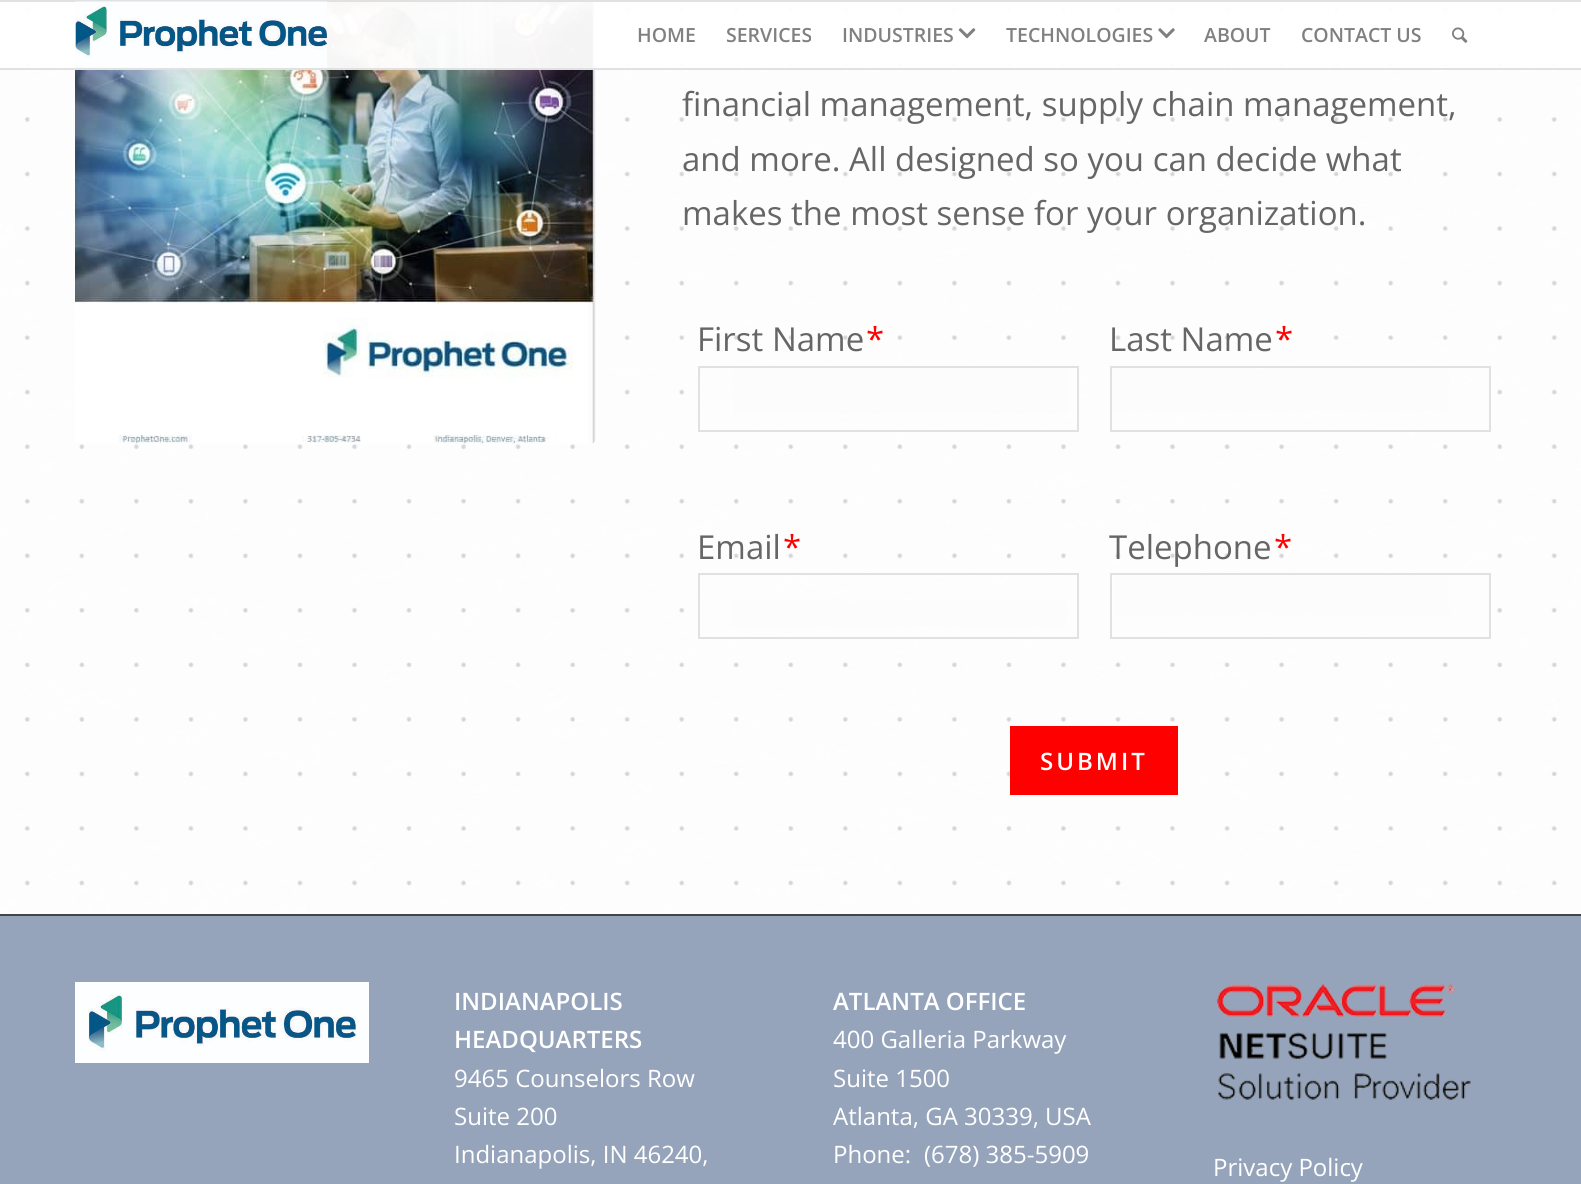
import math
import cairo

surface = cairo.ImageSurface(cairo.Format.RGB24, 1581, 1184)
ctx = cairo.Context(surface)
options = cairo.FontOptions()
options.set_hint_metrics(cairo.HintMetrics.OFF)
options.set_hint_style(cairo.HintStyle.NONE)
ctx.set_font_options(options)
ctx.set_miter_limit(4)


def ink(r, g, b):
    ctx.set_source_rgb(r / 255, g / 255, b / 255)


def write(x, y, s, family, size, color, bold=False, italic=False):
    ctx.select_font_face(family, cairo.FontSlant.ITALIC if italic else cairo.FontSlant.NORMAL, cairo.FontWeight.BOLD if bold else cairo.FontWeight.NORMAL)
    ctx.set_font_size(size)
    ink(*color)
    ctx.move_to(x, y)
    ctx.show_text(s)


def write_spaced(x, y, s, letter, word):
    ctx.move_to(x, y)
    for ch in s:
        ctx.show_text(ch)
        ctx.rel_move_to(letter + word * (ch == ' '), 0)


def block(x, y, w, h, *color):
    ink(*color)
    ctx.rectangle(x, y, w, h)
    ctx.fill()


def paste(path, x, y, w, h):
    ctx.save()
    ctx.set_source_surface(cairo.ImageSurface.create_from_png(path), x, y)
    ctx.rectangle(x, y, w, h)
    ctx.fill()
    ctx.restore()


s1 = dict(family="Open Sans SemiBold", size=19.5, color=(128, 128, 128))
s2 = dict(family="Open Sans", size=33, color=(102, 102, 102))
s3 = dict(family="Open Sans", size=33, color=(255, 0, 0))
s4 = dict(family="Open Sans SemiBold", size=24, color=(255, 255, 255))
s5 = dict(family="Open Sans", size=24, color=(255, 255, 255))

ink(255, 255, 255)
ctx.paint()
paste("pic5.png", 0, 2, 1581, 911)
paste("pic6.png", 75, 2, 521, 442)
ctx.set_source_rgba(1, 1, 1, 0.95)
ctx.rectangle(0, 2, 1581, 66)
ctx.fill()
block(0, 0, 1581, 2, 225, 225, 225)
block(0, 68, 1581, 2, 225, 225, 225)
paste("pic1.png", 75, 1, 252, 67)
write(637, 42, "HOME", **s1)
write(726, 42, "SERVICES", **s1)
write(842, 42, "INDUSTRIES", **s1)
paste("pic2.png", 958, 28, 18, 11)
write(1006, 42, "TECHNOLOGIES", **s1)
paste("pic3.png", 1158, 28, 17, 11)
write(1204, 42, "ABOUT", **s1)
write(1301, 42, "CONTACT US", **s1)
paste("pic4.png", 1452, 27, 16, 16)
write(682, 116, "financial management, supply chain management,", **s2)
write(682, 171, "and more. All designed so you can decide what", **s2)
write(682, 225, "makes the most sense for your organization.", **s2)
write(697, 351, "First Name", **s2)
write(866, 351, "*", **s3)
block(733, 368, 334, 46, 252, 252, 252)
ctx.rectangle(699, 367, 379, 64)
ink(225, 225, 225)
ctx.stroke()
write(1109, 351, "Last Name", **s2)
write(1275, 351, "*", **s3)
block(1112, 369, 337, 42, 252, 252, 252)
ctx.rectangle(1111, 367, 379, 64)
ink(225, 225, 225)
ctx.stroke()
write(697, 559, "Email", **s2)
write(783, 559, "*", **s3)
block(731, 601, 335, 26, 252, 252, 252)
ctx.rectangle(699, 574, 379, 64)
ink(225, 225, 225)
ctx.stroke()
write(1109, 559, "Telephone", **s2)
write(1274, 559, "*", **s3)
block(1114, 575, 335, 40, 252, 252, 252)
ctx.rectangle(1111, 574, 379, 64)
ink(225, 225, 225)
ctx.stroke()
block(1010, 726, 168, 69, 255, 0, 0)
ctx.select_font_face("Open Sans SemiBold")
ctx.set_font_size(24)
ink(255, 255, 255)
write_spaced(1040, 770, "SUBMIT", 3, 0)
block(0, 916, 1581, 268, 149, 164, 186)
block(0, 914, 1581, 2, 68, 68, 68)
paste("pic7.png", 75, 982, 294, 81)
write(454, 1010, "INDIANAPOLIS", **s4)
write(454, 1048, "HEADQUARTERS", **s4)
write(454, 1087, "9465 Counselors Row", **s5)
write(454, 1125, "Suite 200", **s5)
write(454, 1163, "Indianapolis, IN 46240,", **s5)
write(833, 1010, "ATLANTA OFFICE", **s4)
write(833, 1048, "400 Galleria Parkway", **s5)
write(833, 1087, "Suite 1500", **s5)
write(833, 1125, "Atlanta, GA 30339, USA", **s5)
write(833, 1163, "Phone:", **s5)
write(924, 1163, "(678) 385-5909", **s5)
paste("pic8.png", 1217, 984, 254, 116)
write(1213, 1176, "Privacy Policy", **s5)
surface.write_to_png("screenshot.png")
